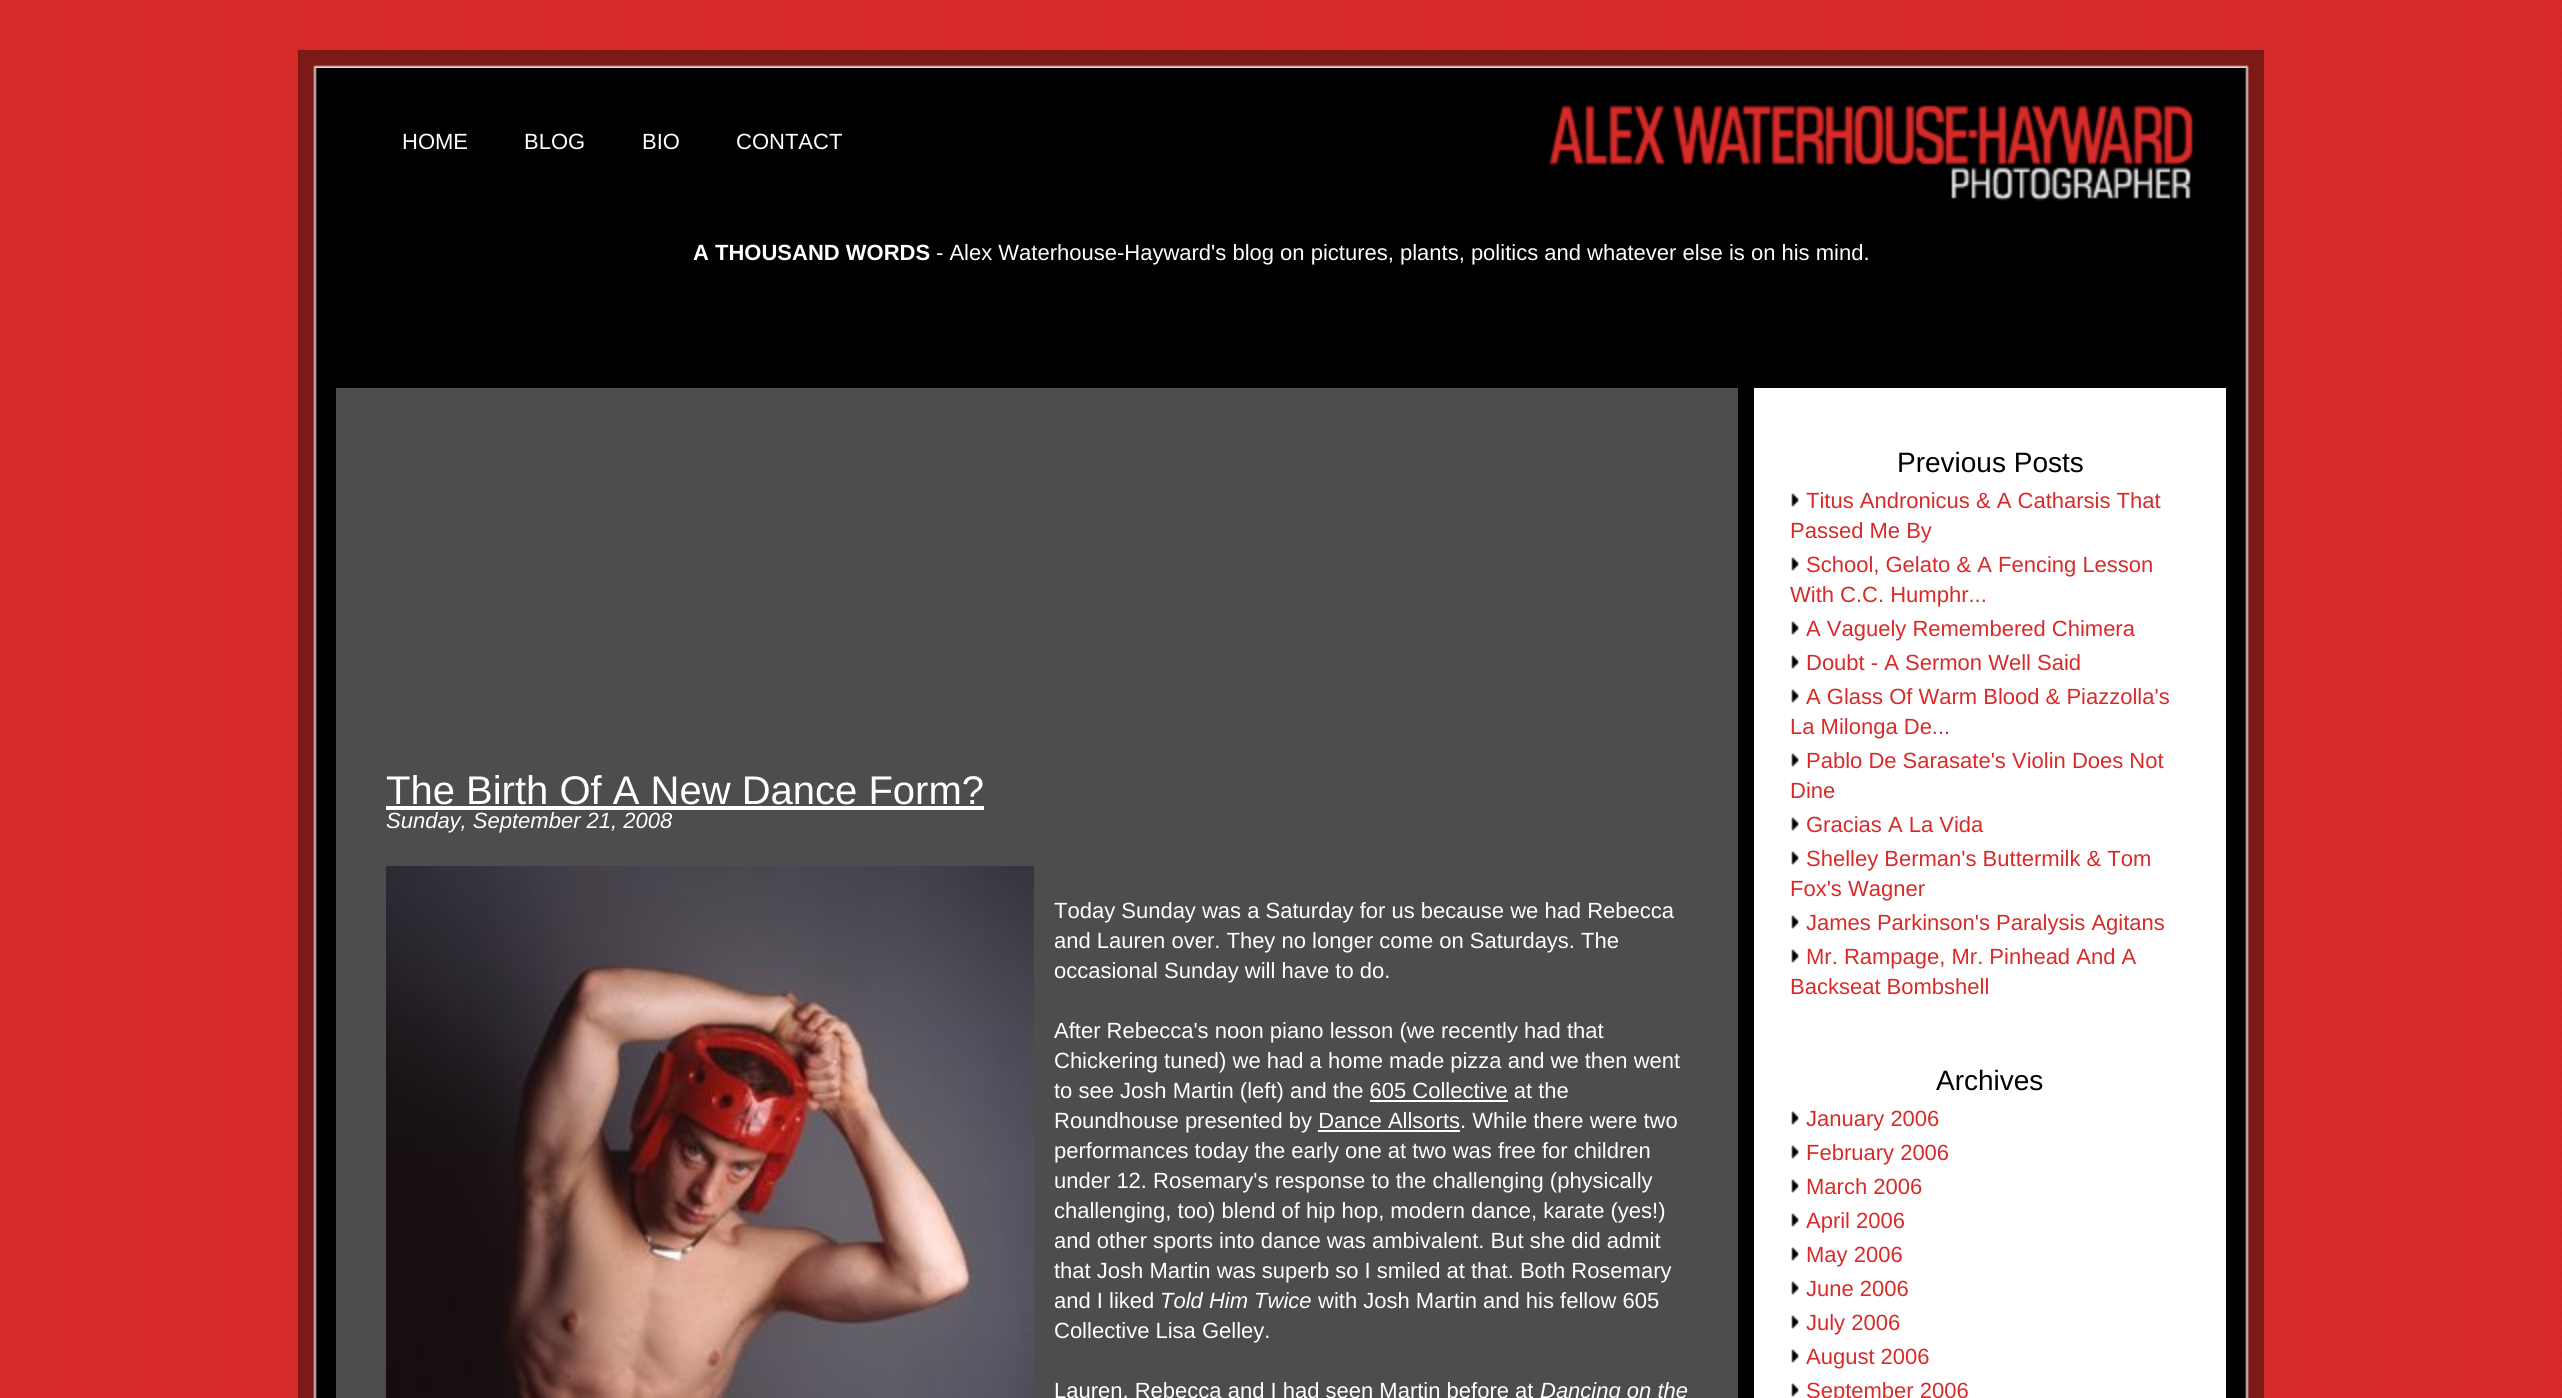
import math
import cairo

surface = cairo.ImageSurface(cairo.Format.RGB24, 2562, 1398)
ctx = cairo.Context(surface)
options = cairo.FontOptions()
options.set_hint_metrics(cairo.HintMetrics.OFF)
options.set_hint_style(cairo.HintStyle.NONE)
ctx.set_font_options(options)
ctx.set_miter_limit(4)


def ink(r, g, b):
    ctx.set_source_rgb(r / 255, g / 255, b / 255)


def write(x, y, s, family, size, color, bold=False, italic=False):
    ctx.select_font_face(family, cairo.FontSlant.ITALIC if italic else cairo.FontSlant.NORMAL, cairo.FontWeight.BOLD if bold else cairo.FontWeight.NORMAL)
    ctx.set_font_size(size)
    ink(*color)
    ctx.move_to(x, y)
    ctx.show_text(s)


def block(x, y, w, h, *color):
    ink(*color)
    ctx.rectangle(x, y, w, h)
    ctx.fill()


def paste(path, x, y, w, h):
    ctx.save()
    ctx.set_source_surface(cairo.ImageSurface.create_from_png(path), x, y)
    ctx.rectangle(x, y, w, h)
    ctx.fill()
    ctx.restore()


s1 = dict(family="Liberation Sans", size=22, color=(255, 255, 255))
s2 = dict(family="Liberation Sans", size=22, color=(255, 255, 255), bold=True)
s3 = dict(family="Liberation Sans", size=40, color=(255, 255, 255))
s4 = dict(family="Liberation Sans", size=22, color=(255, 255, 255), italic=True)
s5 = dict(family="Liberation Sans", size=28, color=(0, 0, 0))
s6 = dict(family="Liberation Sans", size=22, color=(216, 43, 41))

ink(255, 255, 255)
ctx.paint()
paste("pic1.png", 0, 0, 2562, 1398)
paste("pic2.png", 298, 50, 1966, 18)
paste("pic3.png", 298, 68, 1966, 1330)
write(402, 149, "HOME", **s1)
write(524, 149, "BLOG", **s1)
write(642, 149, "BIO", **s1)
write(736, 149, "CONTACT", **s1)
paste("pic4.png", 1549, 105, 644, 96)
write(693, 260, "A THOUSAND WORDS", **s2)
write(936, 260, "- Alex Waterhouse-Hayward's blog on pictures, plants, politics and whatever else is on his mind.", **s1)
block(336, 388, 1402, 1010, 77, 77, 77)
block(1754, 388, 472, 1010, 255, 255, 255)
write(386, 804, "The Birth Of A New Dance Form?", **s3)
block(386, 806, 598, 4, 255, 255, 255)
write(386, 828, "Sunday, September 21, 2008", **s4)
paste("pic5.png", 386, 866, 648, 532)
write(1054, 918, "Today Sunday was a Saturday for us because we had Rebecca", **s1)
write(1054, 948, "and Lauren over. They no longer come on Saturdays. The", **s1)
write(1054, 978, "occasional Sunday will have to do.", **s1)
write(1054, 1038, "After Rebecca's noon piano lesson (we recently had that", **s1)
write(1054, 1068, "Chickering tuned) we had a home made pizza and we then went", **s1)
write(1054, 1098, "to see Josh Martin (left) and the 605 Collective at the", **s1)
block(1370, 1100, 138, 2, 255, 255, 255)
write(1054, 1128, "Roundhouse presented by Dance Allsorts. While there were two", **s1)
block(1318, 1130, 142, 2, 255, 255, 255)
write(1054, 1158, "performances today the early one at two was free for children", **s1)
write(1054, 1188, "under 12. Rosemary's response to the challenging (physically", **s1)
write(1054, 1218, "challenging, too) blend of hip hop, modern dance, karate (yes!)", **s1)
write(1054, 1248, "and other sports into dance was ambivalent. But she did admit", **s1)
write(1054, 1278, "that Josh Martin was superb so I smiled at that. Both Rosemary", **s1)
write(1054, 1308, "and I liked", **s1)
write(1160, 1308, "Told Him Twice", **s4)
write(1318, 1308, "with Josh Martin and his fellow 605", **s1)
write(1054, 1338, "Collective Lisa Gelley.", **s1)
write(1054, 1398, "Lauren, Rebecca and I had seen Martin before at", **s1)
write(1540, 1398, "Dancing on the", **s4)
write(1897, 472, "Previous Posts", **s5)
paste("pic6.png", 1791, 493, 8, 14)
write(1806, 508, "Titus Andronicus & A Catharsis That", **s6)
write(1790, 538, "Passed Me By", **s6)
paste("pic6.png", 1791, 557, 8, 14)
write(1806, 572, "School, Gelato & A Fencing Lesson", **s6)
write(1790, 602, "With C.C. Humphr...", **s6)
paste("pic6.png", 1791, 621, 8, 14)
write(1806, 636, "A Vaguely Remembered Chimera", **s6)
paste("pic6.png", 1791, 655, 8, 14)
write(1806, 670, "Doubt - A Sermon Well Said", **s6)
paste("pic6.png", 1791, 689, 8, 14)
write(1806, 704, "A Glass Of Warm Blood & Piazzolla's", **s6)
write(1790, 734, "La Milonga De...", **s6)
paste("pic6.png", 1791, 753, 8, 14)
write(1806, 768, "Pablo De Sarasate's Violin Does Not", **s6)
write(1790, 798, "Dine", **s6)
paste("pic6.png", 1791, 817, 8, 14)
write(1806, 832, "Gracias A La Vida", **s6)
paste("pic6.png", 1791, 851, 8, 14)
write(1806, 866, "Shelley Berman's Buttermilk & Tom", **s6)
write(1790, 896, "Fox's Wagner", **s6)
paste("pic6.png", 1791, 915, 8, 14)
write(1806, 930, "James Parkinson's Paralysis Agitans", **s6)
paste("pic6.png", 1791, 949, 8, 14)
write(1806, 964, "Mr. Rampage, Mr. Pinhead And A", **s6)
write(1790, 994, "Backseat Bombshell", **s6)
write(1936, 1090, "Archives", **s5)
paste("pic6.png", 1791, 1111, 8, 14)
write(1806, 1126, "January 2006", **s6)
paste("pic6.png", 1791, 1145, 8, 14)
write(1806, 1160, "February 2006", **s6)
paste("pic6.png", 1791, 1179, 8, 14)
write(1806, 1194, "March 2006", **s6)
paste("pic6.png", 1791, 1213, 8, 14)
write(1806, 1228, "April 2006", **s6)
paste("pic6.png", 1791, 1247, 8, 14)
write(1806, 1262, "May 2006", **s6)
paste("pic6.png", 1791, 1281, 8, 14)
write(1806, 1296, "June 2006", **s6)
paste("pic6.png", 1791, 1315, 8, 14)
write(1806, 1330, "July 2006", **s6)
paste("pic6.png", 1791, 1349, 8, 14)
write(1806, 1364, "August 2006", **s6)
paste("pic6.png", 1791, 1383, 8, 14)
write(1806, 1398, "September 2006", **s6)
surface.write_to_png("screenshot.png")
